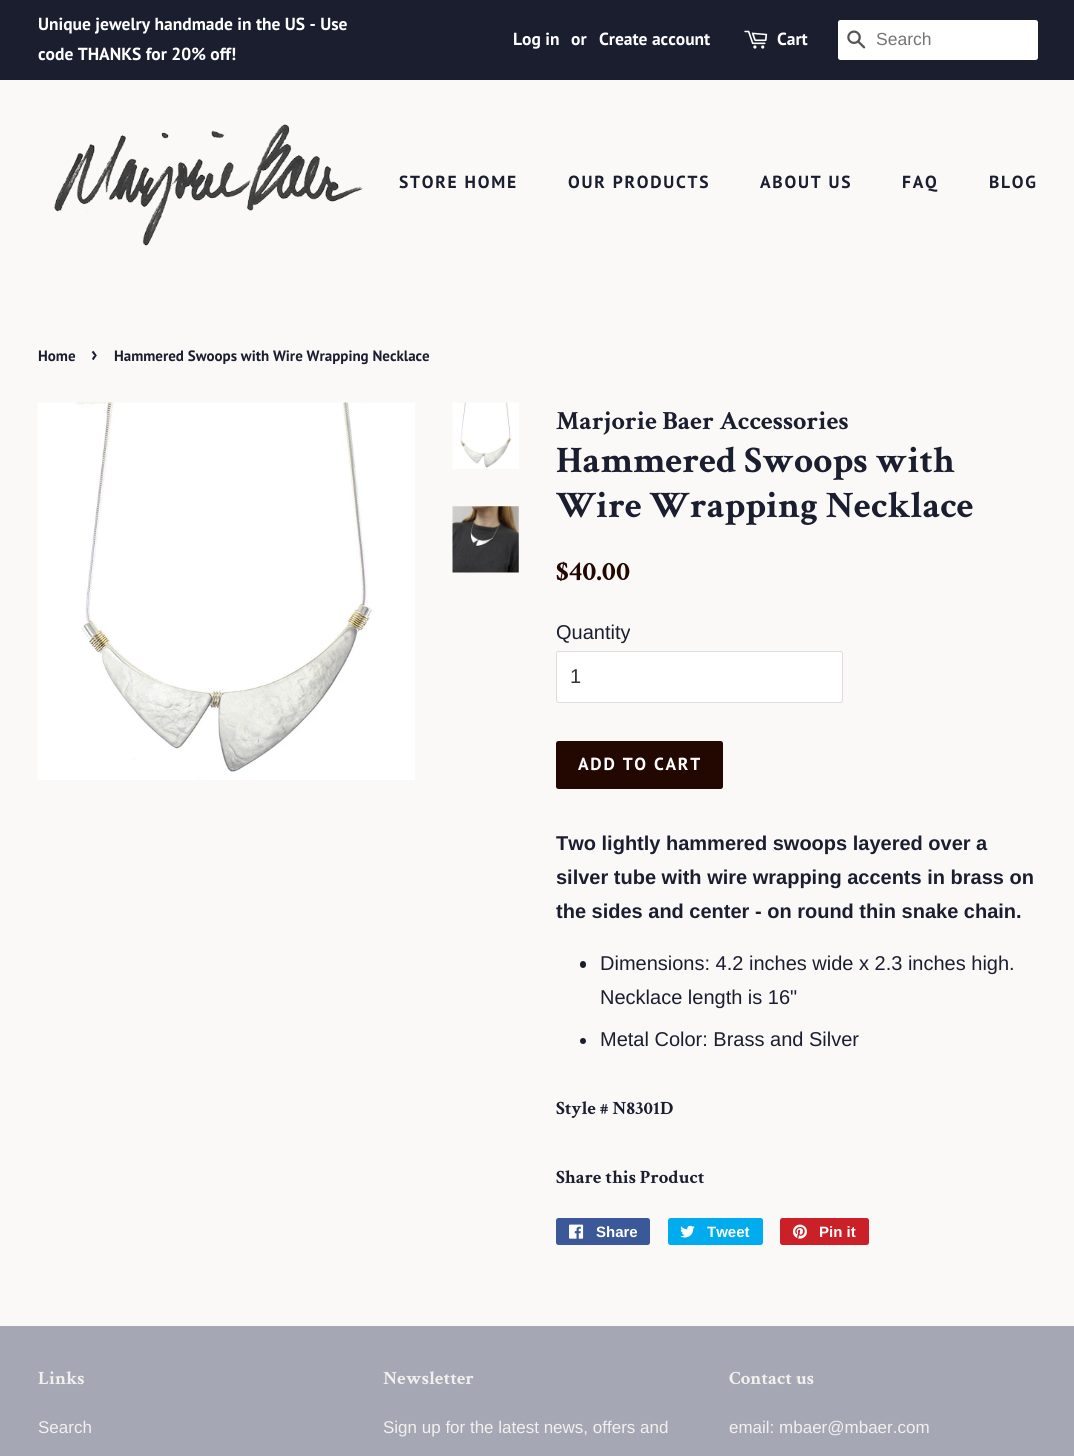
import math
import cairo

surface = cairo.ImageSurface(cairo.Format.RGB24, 1074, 1456)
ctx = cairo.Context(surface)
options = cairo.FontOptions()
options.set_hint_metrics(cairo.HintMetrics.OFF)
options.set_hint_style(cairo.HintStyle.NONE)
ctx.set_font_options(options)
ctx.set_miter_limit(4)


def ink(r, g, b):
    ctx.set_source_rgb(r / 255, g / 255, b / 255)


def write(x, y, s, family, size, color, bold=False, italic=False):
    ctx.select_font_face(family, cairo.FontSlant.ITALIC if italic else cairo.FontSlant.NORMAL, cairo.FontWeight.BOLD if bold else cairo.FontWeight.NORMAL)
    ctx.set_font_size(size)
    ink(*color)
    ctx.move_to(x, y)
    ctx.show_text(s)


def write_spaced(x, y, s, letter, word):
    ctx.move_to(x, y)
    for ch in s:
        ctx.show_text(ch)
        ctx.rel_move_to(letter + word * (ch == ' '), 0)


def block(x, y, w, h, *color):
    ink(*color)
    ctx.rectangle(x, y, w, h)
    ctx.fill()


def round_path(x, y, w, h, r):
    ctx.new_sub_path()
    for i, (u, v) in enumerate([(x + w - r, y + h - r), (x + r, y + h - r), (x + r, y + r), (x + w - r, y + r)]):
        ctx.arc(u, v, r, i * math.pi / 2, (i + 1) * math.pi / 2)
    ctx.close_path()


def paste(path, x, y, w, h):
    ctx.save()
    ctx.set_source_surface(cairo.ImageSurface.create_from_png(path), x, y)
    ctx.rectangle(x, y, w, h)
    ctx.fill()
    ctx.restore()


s1 = dict(family="PT Sans", size=17.5, color=(255, 255, 255), bold=True)
s2 = dict(family="Liberation Sans", size=17.5, color=(117, 117, 117))
s3 = dict(family="PT Sans", size=15, color=(27, 30, 47), bold=True)
s4 = dict(family="PT Sans", size=21, color=(27, 30, 47), bold=True)
s5 = dict(family="Crimson Text", size=26.25, color=(27, 30, 47), bold=True)
s6 = dict(family="Crimson Text", size=37.5, color=(27, 30, 47), bold=True)
s7 = dict(family="Crimson Text", size=28, color=(35, 7, 1), bold=True)
s8 = dict(family="Liberation Sans", size=20, color=(27, 30, 47))
s9 = dict(family="Liberation Sans", size=20, color=(51, 51, 51))
s10 = dict(family="Liberation Sans", size=20, color=(27, 30, 47), bold=True)
s11 = dict(family="Crimson Text", size=18.75, color=(27, 30, 47), bold=True)
s12 = dict(family="Liberation Sans", size=15, color=(255, 255, 255), bold=True)
s13 = dict(family="Crimson Text", size=18.75, color=(242, 240, 238), bold=True)
s14 = dict(family="Liberation Sans", size=17, color=(242, 240, 238))

ink(250, 249, 247)
ctx.paint()
block(0, 0, 1074, 80, 27, 30, 47)
write(38, 30, "Unique jewelry handmade in the US - Use", **s1)
write(38, 60, "code THANKS for 20% off!", **s1)
write(513, 45, "Log in", **s1)
write(571, 45, "or", **s1)
write(599, 45, "Create account", **s1)
paste("pic1.png", 744, 30, 24, 19)
write(777, 45, "Cart", **s1)
round_path(838, 20, 200, 40, 2.5)
ctx.fill()
paste("pic2.png", 847, 30, 19, 19)
write(876, 45, "Search", **s2)
paste("pic3.png", 54, 124, 309, 123)
ctx.select_font_face("PT Sans", cairo.FontSlant.NORMAL, cairo.FontWeight.BOLD)
ink(27, 30, 47)
write_spaced(399, 188, "STORE HOME", 1.75, 0)
write_spaced(568, 188, "OUR PRODUCTS", 1.75, 0)
write_spaced(760, 188, "ABOUT US", 1.75, 0)
write_spaced(902, 188, "FAQ", 1.75, 0)
write_spaced(989, 188, "BLOG", 1.75, 0)
write(38, 361, "Home", **s3)
write(91, 361, "›", **s4)
write(114, 361, "Hammered Swoops with Wire Wrapping Necklace", **s3)
paste("pic4.png", 37, 402, 378, 378)
paste("pic5.png", 452, 402, 67, 67)
paste("pic6.png", 452, 506, 67, 67)
write(556, 429, "Marjorie Baer Accessories", **s5)
write(556, 472, "Hammered Swoops with", **s6)
write(556, 517, "Wire Wrapping Necklace", **s6)
write(556, 580, "$40.00", **s7)
write(556, 639, "Quantity", **s8)
ink(255, 255, 255)
round_path(556.5, 651.5, 286, 51, 2)
ctx.fill_preserve()
ink(221, 221, 224)
ctx.set_line_width(1)
ctx.stroke()
write(570, 683, "1", **s9)
ink(35, 7, 1)
round_path(556, 741, 167, 48, 2.5)
ctx.fill()
ctx.select_font_face("PT Sans", cairo.FontSlant.NORMAL, cairo.FontWeight.BOLD)
ctx.set_font_size(17.5)
ink(255, 255, 255)
write_spaced(578, 770, "ADD TO CART", 1.75, 0)
write(556, 850, "Two lightly hammered swoops layered over a", **s10)
write(556, 884, "silver tube with wire wrapping accents in brass on", **s10)
write(556, 918, "the sides and center - on round thin snake chain.", **s10)
round_path(580, 961, 6, 7, 3)
ctx.fill()
write(600, 970, "Dimensions: 4.2 inches wide x 2.3 inches high.", **s8)
write(600, 1004, "Necklace length is 16\"", **s8)
ctx.new_path()
ctx.arc(583, 1041, 3, 0, 2 * math.pi)
ctx.fill()
write(600, 1046, "Metal Color: Brass and Silver", **s8)
write(556, 1114, "Style # N8301D", **s11)
write(556, 1183, "Share this Product", **s11)
ink(59, 89, 152)
round_path(556, 1218, 94, 27, 2.5)
ctx.fill()
paste("pic7.png", 569, 1224, 15, 15)
write(596, 1237, "Share", **s12)
ink(0, 172, 237)
round_path(668, 1218, 95, 27, 2.5)
ctx.fill()
paste("pic8.png", 680, 1225, 15, 13)
write(707, 1237, "Tweet", **s12)
ink(203, 32, 39)
round_path(780, 1218, 89, 27, 2.5)
ctx.fill()
paste("pic9.png", 792, 1224, 15, 15)
write(819, 1237, "Pin it", **s12)
block(0, 1326, 1074, 130, 165, 167, 180)
write(38, 1384, "Links", **s13)
write(38, 1433, "Search", **s14)
write(383, 1384, "Newsletter", **s13)
write(383, 1433, "Sign up for the latest news, offers and", **s14)
write(729, 1384, "Contact us", **s13)
write(729, 1433, "email: mbaer@mbaer.com", **s14)
surface.write_to_png("screenshot.png")
